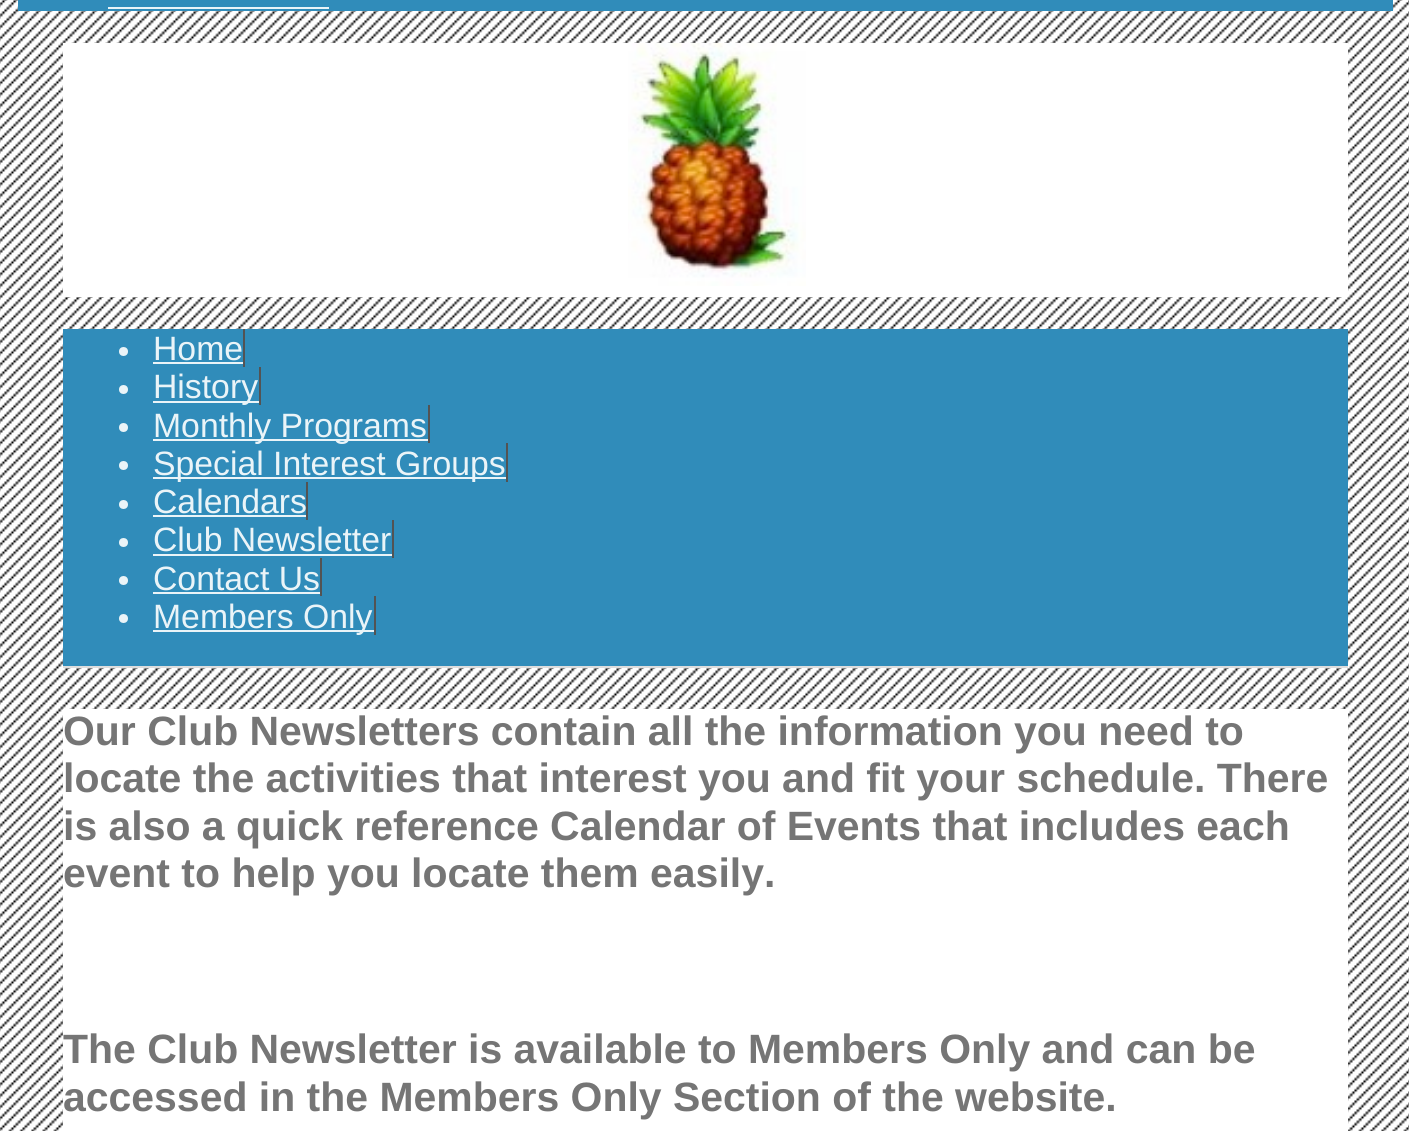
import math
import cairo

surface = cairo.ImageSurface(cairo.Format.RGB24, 1409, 1131)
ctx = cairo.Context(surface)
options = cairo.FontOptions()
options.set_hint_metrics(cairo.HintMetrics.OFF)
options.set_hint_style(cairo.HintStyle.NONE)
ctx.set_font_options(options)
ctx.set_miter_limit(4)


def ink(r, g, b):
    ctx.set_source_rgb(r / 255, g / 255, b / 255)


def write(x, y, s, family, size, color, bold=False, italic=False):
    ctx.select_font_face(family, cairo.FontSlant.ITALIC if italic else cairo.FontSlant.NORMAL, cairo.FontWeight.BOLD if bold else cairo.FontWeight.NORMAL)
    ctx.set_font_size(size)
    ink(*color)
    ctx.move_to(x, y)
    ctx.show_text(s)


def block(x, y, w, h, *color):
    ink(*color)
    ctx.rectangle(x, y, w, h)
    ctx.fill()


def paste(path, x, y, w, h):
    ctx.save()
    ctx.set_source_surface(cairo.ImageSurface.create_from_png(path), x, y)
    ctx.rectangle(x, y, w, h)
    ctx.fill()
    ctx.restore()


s1 = dict(family="Liberation Sans", size=33.75, color=(234, 244, 248))
s2 = dict(family="Liberation Sans", size=40.95, color=(117, 117, 117), bold=True)

ink(255, 255, 255)
ctx.paint()
paste("pic1.png", 0, 0, 1409, 1131)
block(18, 0, 1375, 11, 48, 140, 186)
block(108, 7, 221, 2, 234, 244, 248)
block(63, 43, 1285, 254, 255, 255, 255)
paste("pic2.png", 628, 43, 178, 243)
block(63, 329, 1285, 337, 48, 140, 186)
block(63, 666, 1285, 2, 221, 221, 221)
ink(234, 244, 248)
ctx.arc(123.5, 351.5, 4.5, 0, 2 * math.pi)
ctx.fill()
write(153, 360, "Home", **s1)
block(243, 329, 2, 38, 83, 83, 83)
block(153, 362, 90, 2, 234, 244, 248)
ctx.new_path()
ctx.arc(123.5, 389.5, 4.5, 0, 2 * math.pi)
ctx.fill()
block(153, 401, 106, 2, 234, 244, 248)
write(153, 398, "History", **s1)
block(259, 367, 2, 38, 83, 83, 83)
ink(234, 244, 248)
ctx.new_path()
ctx.arc(123.5, 427.5, 4.5, 0, 2 * math.pi)
ctx.fill()
block(153, 439, 275, 2, 234, 244, 248)
write(153, 437, "Monthly Programs", **s1)
block(428, 405, 2, 38, 83, 83, 83)
ink(234, 244, 248)
ctx.new_path()
ctx.arc(123.5, 465.5, 4.5, 0, 2 * math.pi)
ctx.fill()
block(153, 477, 353, 2, 234, 244, 248)
write(153, 475, "Special Interest Groups", **s1)
block(506, 443, 2, 39, 83, 83, 83)
ink(234, 244, 248)
ctx.new_path()
ctx.arc(123.5, 504.5, 4.5, 0, 2 * math.pi)
ctx.fill()
write(153, 513, "Calendars", **s1)
block(306, 482, 2, 38, 83, 83, 83)
block(153, 515, 153, 2, 234, 244, 248)
ctx.new_path()
ctx.arc(123.5, 542.5, 4.5, 0, 2 * math.pi)
ctx.fill()
write(153, 551, "Club Newsletter", **s1)
block(392, 520, 2, 38, 83, 83, 83)
block(153, 554, 239, 2, 234, 244, 248)
ctx.new_path()
ctx.arc(123.5, 580.5, 4.5, 0, 2 * math.pi)
ctx.fill()
write(153, 590, "Contact Us", **s1)
block(320, 558, 2, 38, 83, 83, 83)
block(153, 592, 167, 2, 234, 244, 248)
ctx.new_path()
ctx.arc(123.5, 618.5, 4.5, 0, 2 * math.pi)
ctx.fill()
block(153, 630, 221, 2, 234, 244, 248)
write(153, 628, "Members Only", **s1)
block(374, 596, 2, 39, 83, 83, 83)
block(63, 709, 1285, 422, 255, 255, 255)
write(63, 745, "Our Club Newsletters contain all the information you need to", **s2)
write(63, 792, "locate the activities that interest you and fit your schedule. There", **s2)
write(63, 840, "is also a quick reference Calendar of Events that includes each", **s2)
write(63, 887, "event to help you locate them easily.", **s2)
write(63, 1063, "The Club Newsletter is available to Members Only and can be", **s2)
write(63, 1111, "accessed in the Members Only Section of the website.", **s2)
surface.write_to_png("screenshot.png")
